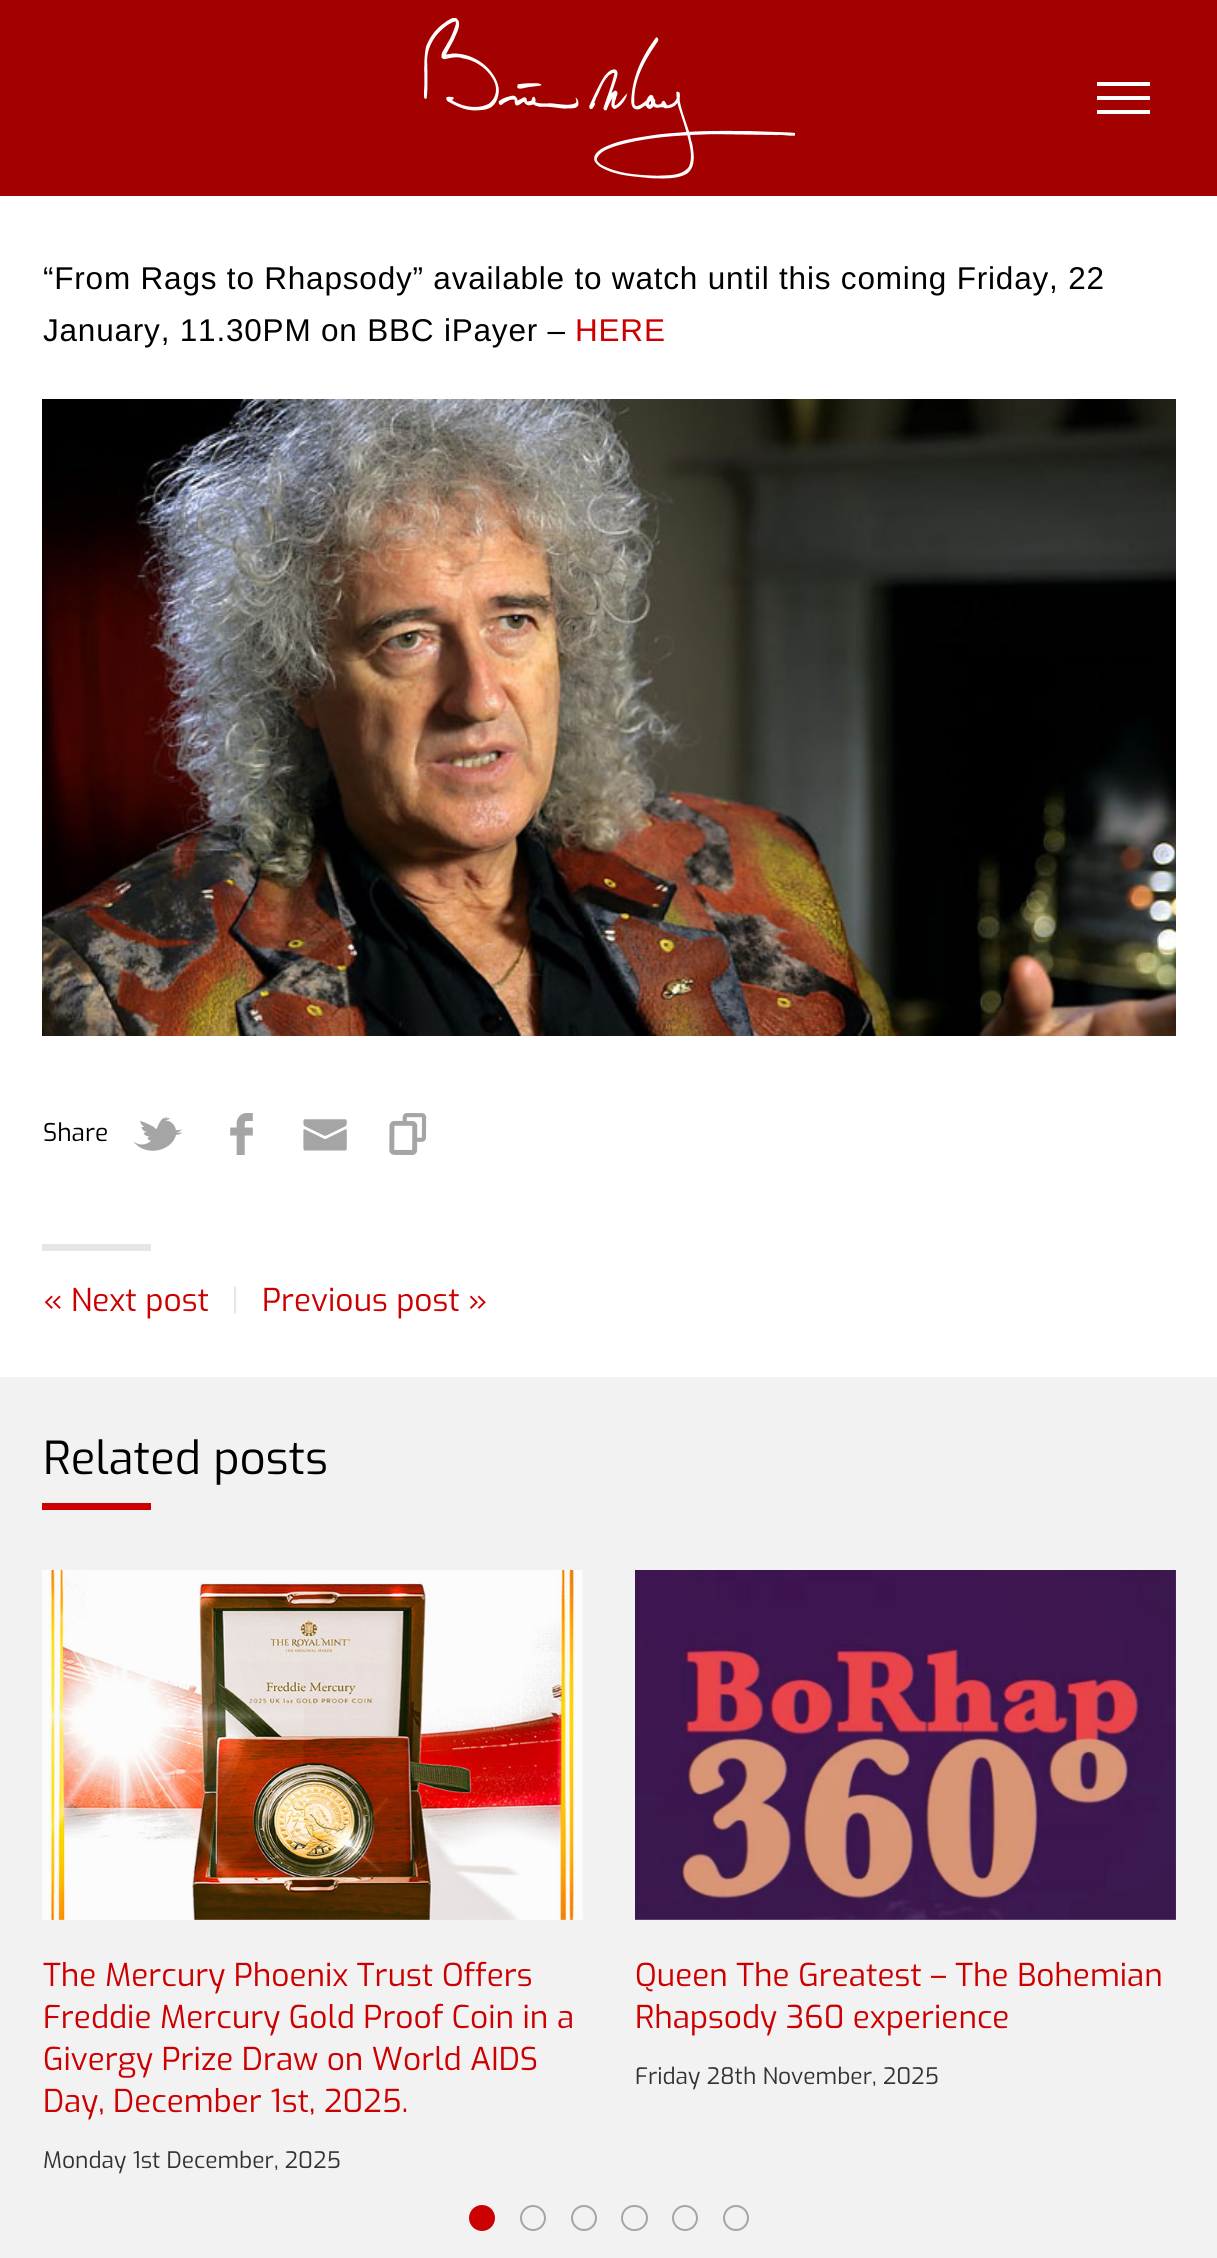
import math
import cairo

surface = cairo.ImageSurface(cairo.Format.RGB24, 1217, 2258)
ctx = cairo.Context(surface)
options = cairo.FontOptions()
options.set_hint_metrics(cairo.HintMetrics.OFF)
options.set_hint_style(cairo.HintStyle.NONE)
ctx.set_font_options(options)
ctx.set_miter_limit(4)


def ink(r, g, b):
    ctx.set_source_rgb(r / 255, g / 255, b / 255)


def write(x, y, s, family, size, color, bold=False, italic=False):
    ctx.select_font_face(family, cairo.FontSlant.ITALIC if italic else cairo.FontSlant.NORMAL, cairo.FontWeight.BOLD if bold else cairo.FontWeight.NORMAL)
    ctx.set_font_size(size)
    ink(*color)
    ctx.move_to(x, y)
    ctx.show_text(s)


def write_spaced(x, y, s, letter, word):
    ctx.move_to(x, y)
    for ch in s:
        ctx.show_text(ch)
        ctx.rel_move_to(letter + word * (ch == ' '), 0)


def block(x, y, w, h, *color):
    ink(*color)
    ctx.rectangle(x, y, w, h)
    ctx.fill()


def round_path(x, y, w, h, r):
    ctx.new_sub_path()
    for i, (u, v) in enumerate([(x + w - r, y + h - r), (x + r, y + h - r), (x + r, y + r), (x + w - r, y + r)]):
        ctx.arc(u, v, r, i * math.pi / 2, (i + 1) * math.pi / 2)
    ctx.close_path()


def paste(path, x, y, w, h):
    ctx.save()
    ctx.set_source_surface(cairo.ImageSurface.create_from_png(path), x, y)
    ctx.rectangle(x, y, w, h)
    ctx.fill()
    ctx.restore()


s1 = dict(family="Exo", size=24.5, color=(0, 0, 0))
s2 = dict(family="Exo", size=31.5, color=(204, 0, 0))
s3 = dict(family="Exo", size=31.5, color=(230, 230, 230))
s4 = dict(family="Exo", size=45.5, color=(0, 0, 0))
s5 = dict(family="Exo", size=22.75, color=(51, 51, 51))

ink(255, 255, 255)
ctx.paint()
block(0, 0, 1217, 196, 163, 0, 0)
paste("pic1.png", 424, 18, 371, 161)
block(1097, 96, 53, 4, 255, 255, 255)
block(1097, 82, 53, 4, 255, 255, 255)
block(1097, 110, 53, 4, 255, 255, 255)
ctx.select_font_face("Liberation Sans")
ctx.set_font_size(31.5)
ink(0, 0, 0)
write_spaced(43, 289, "“From Rags to Rhapsody” available to watch until this coming Friday, 22", 0.8, 0)
write_spaced(43, 341, "January, 11.30PM on BBC iPayer –", 0.8, 0)
ink(204, 0, 0)
write_spaced(575, 341, "HERE", 0.8, 0)
paste("pic2.png", 42, 399, 1134, 637)
write(43, 1141, "Share", **s1)
paste("pic3.png", 133, 1117, 49, 34)
paste("pic4.png", 230, 1113, 23, 42)
paste("pic5.png", 303, 1119, 44, 32)
paste("pic6.png", 389, 1113, 38, 42)
block(42, 1244, 109, 7, 230, 230, 230)
write(43, 1311, "« Next post", **s2)
write(231, 1311, "|", **s3)
write(262, 1311, "Previous post »", **s2)
block(0, 1377, 1217, 881, 242, 242, 242)
write(43, 1474, "Related posts", **s4)
block(42, 1503, 109, 7, 204, 0, 0)
paste("pic7.png", 42, 1570, 541, 350)
write(43, 1986, "The Mercury Phoenix Trust Offers", **s2)
write(43, 2028, "Freddie Mercury Gold Proof Coin in a", **s2)
write(43, 2070, "Givergy Prize Draw on World AIDS", **s2)
write(43, 2112, "Day, December 1st, 2025.", **s2)
write(43, 2168, "Monday 1st December, 2025", **s5)
paste("pic8.png", 635, 1570, 541, 350)
write(635, 1986, "Queen The Greatest – The Bohemian", **s2)
write(635, 2028, "Rhapsody 360 experience", **s2)
write(635, 2084, "Friday 28th November, 2025", **s5)
ink(204, 0, 0)
ctx.new_path()
ctx.arc(482, 2218, 12, 0, 2 * math.pi)
ctx.fill_preserve()
ctx.stroke()
ctx.arc(533, 2218, 12, 0, 2 * math.pi)
ink(165, 165, 165)
ctx.stroke()
ctx.arc(584, 2218, 12, 0, 2 * math.pi)
ctx.stroke()
round_path(622, 2206, 25, 24, 12)
ctx.stroke()
ctx.arc(685, 2218, 12, 0, 2 * math.pi)
ctx.stroke()
ctx.arc(736, 2218, 12, 0, 2 * math.pi)
ctx.stroke()
surface.write_to_png("screenshot.png")
